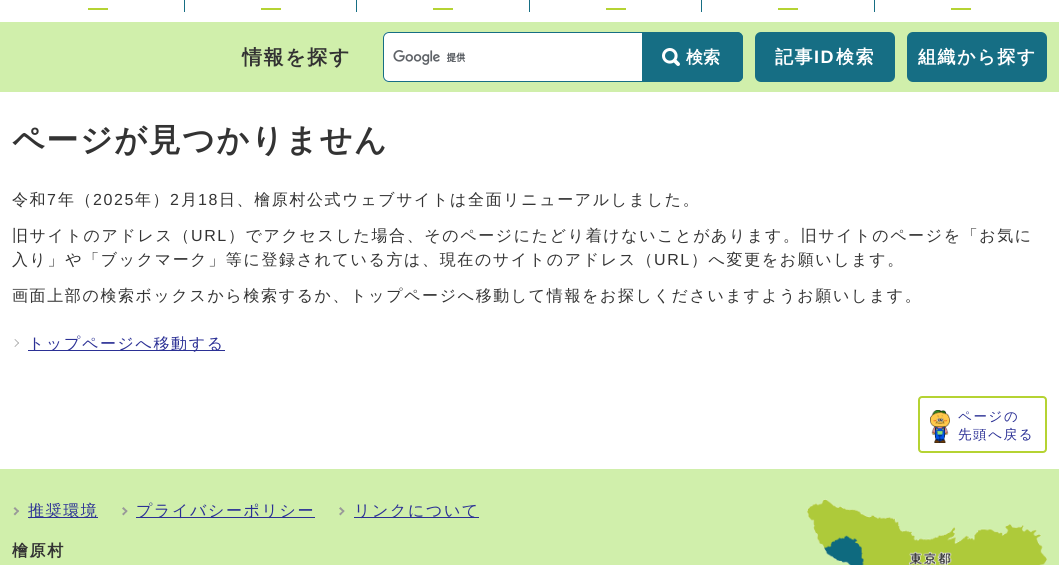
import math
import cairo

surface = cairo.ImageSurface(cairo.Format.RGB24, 1059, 565)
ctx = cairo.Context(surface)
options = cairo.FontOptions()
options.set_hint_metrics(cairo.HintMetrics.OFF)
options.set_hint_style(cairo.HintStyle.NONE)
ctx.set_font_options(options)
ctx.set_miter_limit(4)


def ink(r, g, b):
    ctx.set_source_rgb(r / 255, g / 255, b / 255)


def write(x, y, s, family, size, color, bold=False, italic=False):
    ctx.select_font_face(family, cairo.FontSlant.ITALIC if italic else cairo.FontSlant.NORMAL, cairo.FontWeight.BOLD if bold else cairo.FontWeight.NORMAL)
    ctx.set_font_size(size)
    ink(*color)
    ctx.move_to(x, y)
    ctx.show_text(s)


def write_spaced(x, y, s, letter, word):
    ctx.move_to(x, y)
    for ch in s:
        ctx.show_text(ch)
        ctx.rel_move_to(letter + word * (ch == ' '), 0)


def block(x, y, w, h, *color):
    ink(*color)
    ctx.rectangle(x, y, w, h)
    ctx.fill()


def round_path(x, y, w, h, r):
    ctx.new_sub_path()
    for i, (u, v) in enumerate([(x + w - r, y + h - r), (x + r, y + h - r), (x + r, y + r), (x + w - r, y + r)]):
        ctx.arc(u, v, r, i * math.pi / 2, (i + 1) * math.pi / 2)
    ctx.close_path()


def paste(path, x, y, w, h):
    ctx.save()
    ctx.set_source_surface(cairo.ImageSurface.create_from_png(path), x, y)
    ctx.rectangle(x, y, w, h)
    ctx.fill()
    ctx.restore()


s1 = dict(family="WenQuanYi Zen Hei", size=17, color=(255, 255, 255), bold=True)

ink(255, 255, 255)
ctx.paint()
block(88, 8, 20, 2, 181, 211, 51)
block(184, 0, 1, 12, 22, 110, 132)
block(261, 8, 20, 2, 181, 211, 51)
block(356, 0, 1, 12, 22, 110, 132)
block(433, 8, 20, 2, 181, 211, 51)
block(529, 0, 1, 12, 22, 110, 132)
block(606, 8, 20, 2, 181, 211, 51)
block(701, 0, 1, 12, 22, 110, 132)
block(778, 8, 20, 2, 181, 211, 51)
block(874, 0, 1, 12, 22, 110, 132)
block(951, 8, 20, 2, 181, 211, 51)
block(0, 22, 1059, 70, 208, 239, 171)
ctx.select_font_face("WenQuanYi Zen Hei", cairo.FontSlant.NORMAL, cairo.FontWeight.BOLD)
ctx.set_font_size(20)
ink(51, 51, 51)
write_spaced(242, 64, "情報を探す", 1.6, 0)
ink(255, 255, 255)
ctx.new_path()
ctx.move_to(389, 32)
ctx.line_to(643, 32)
ctx.line_to(643, 82)
ctx.line_to(389, 82)
ctx.curve_to(385.5, 82, 383, 79.5, 383, 76)
ctx.line_to(383, 38)
ctx.curve_to(383, 34.5, 385.5, 32, 389, 32)
ctx.close_path()
ctx.fill()
paste("pic1.png", 393, 50, 73, 15)
ctx.new_path()
ctx.move_to(389, 32.5)
ctx.line_to(642.5, 32.5)
ctx.line_to(642.5, 81.5)
ctx.line_to(389, 81.5)
ctx.curve_to(386, 81.5, 383.5, 79, 383.5, 76)
ctx.line_to(383.5, 38)
ctx.curve_to(383.5, 35, 386, 32.5, 389, 32.5)
ctx.close_path()
ink(22, 110, 132)
ctx.set_line_width(1)
ctx.stroke()
ctx.new_path()
ctx.move_to(643, 32)
ctx.line_to(737, 32)
ctx.curve_to(740.5, 32, 743, 34.5, 743, 38)
ctx.line_to(743, 76)
ctx.curve_to(743, 79.5, 740.5, 82, 737, 82)
ctx.line_to(643, 82)
ctx.close_path()
ctx.fill()
paste("pic2.png", 662, 48, 18, 18)
ctx.new_path()
ctx.move_to(643.5, 32.5)
ctx.line_to(737, 32.5)
ctx.curve_to(740, 32.5, 742.5, 35, 742.5, 38)
ctx.line_to(742.5, 76)
ctx.curve_to(742.5, 79, 740, 81.5, 737, 81.5)
ctx.line_to(643.5, 81.5)
ctx.close_path()
ctx.stroke()
write(686, 63, "検索", **s1)
ink(22, 110, 132)
round_path(755, 32, 140, 50, 6)
ctx.fill()
ctx.set_font_size(18)
ink(255, 255, 255)
write_spaced(775, 63, "記事", 1.6, 0)
ctx.select_font_face("Liberation Sans", cairo.FontSlant.NORMAL, cairo.FontWeight.BOLD)
write_spaced(814, 63, "ID", 1.6, 0)
ctx.select_font_face("WenQuanYi Zen Hei", cairo.FontSlant.NORMAL, cairo.FontWeight.BOLD)
write_spaced(836, 63, "検索", 1.6, 0)
ink(22, 110, 132)
round_path(907, 32, 140, 50, 6)
ctx.fill()
ink(255, 255, 255)
write_spaced(918, 63, "組織から探す", 1.6, 0)
ctx.set_font_size(32)
ink(51, 51, 51)
write_spaced(12, 151, "ページが見つかりません", 1.6, 0)
ctx.select_font_face("WenQuanYi Zen Hei Medium")
ctx.set_font_size(16)
write_spaced(12, 205, "令和", 1.6, 0)
ctx.select_font_face("Liberation Sans")
write_spaced(47, 205, "7", 1.6, 0)
ctx.select_font_face("WenQuanYi Zen Hei Medium")
write_spaced(58, 205, "年（", 1.6, 0)
ctx.select_font_face("Liberation Sans")
write_spaced(93, 205, "2025", 1.6, 0)
ctx.select_font_face("WenQuanYi Zen Hei Medium")
write_spaced(135, 205, "年）", 1.6, 0)
ctx.select_font_face("Liberation Sans")
write_spaced(170, 205, "2", 1.6, 0)
ctx.select_font_face("WenQuanYi Zen Hei Medium")
write_spaced(181, 205, "月", 1.6, 0)
ctx.select_font_face("Liberation Sans")
write_spaced(198, 205, "18", 1.6, 0)
ctx.select_font_face("WenQuanYi Zen Hei Medium")
write_spaced(219, 205, "日、檜原村公式ウェブサイトは全面リニューアルしました。", 1.6, 0)
write_spaced(12, 241, "旧サイトのアドレス（", 1.6, 0)
ctx.select_font_face("Liberation Sans")
write_spaced(191, 241, "URL", 1.6, 0)
ctx.select_font_face("WenQuanYi Zen Hei Medium")
write_spaced(228, 241, "）でアクセスした場合、そのページにたどり着けないことがあります。旧サイトのページを「お気に", 1.6, 0)
write_spaced(12, 265, "入り」や「ブックマーク」等に登録されている方は、現在のサイトのアドレス（", 1.6, 0)
ctx.select_font_face("Liberation Sans")
write_spaced(654, 265, "URL", 1.6, 0)
ctx.select_font_face("WenQuanYi Zen Hei Medium")
write_spaced(691, 265, "）へ変更をお願いします。", 1.6, 0)
write_spaced(12, 301, "画面上部の検索ボックスから検索するか、トップページへ移動して情報をお探しくださいますようお願いします。", 1.6, 0)
ink(153, 153, 153)
ctx.new_path()
ctx.move_to(14.5, 339.5)
ctx.line_to(15, 339)
ctx.line_to(19, 343)
ctx.line_to(18.5, 343.5)
ctx.close_path()
ctx.fill()
ctx.new_path()
ctx.move_to(14.5, 346.5)
ctx.line_to(18.5, 342.5)
ctx.line_to(19, 343)
ctx.line_to(15, 347)
ctx.close_path()
ctx.fill()
block(28, 350, 197, 1, 43, 48, 149)
write_spaced(28, 349, "トップページへ移動する", 1.6, 0)
paste("pic3.png", 930, 410, 20, 33)
round_path(919, 397, 127, 55, 3)
ink(181, 211, 51)
ctx.set_line_width(2)
ctx.stroke()
ctx.set_font_size(13.5)
ink(43, 48, 149)
write_spaced(958, 421, "ページの", 1.6, 0)
write_spaced(958, 439, "先頭へ戻る", 1.6, 0)
block(0, 469, 1059, 96, 208, 239, 171)
ink(153, 153, 153)
ctx.new_path()
ctx.move_to(13.5, 508.5)
ctx.line_to(15, 507)
ctx.line_to(19, 511)
ctx.line_to(18, 512.5)
ctx.close_path()
ctx.fill()
ctx.new_path()
ctx.move_to(13.5, 514)
ctx.line_to(18, 510)
ctx.line_to(19, 511)
ctx.line_to(15, 515.5)
ctx.close_path()
ctx.fill()
block(28, 517, 70, 1, 43, 48, 149)
ctx.set_font_size(16)
write_spaced(28, 516, "推奨環境", 1.6, 0)
ink(153, 153, 153)
ctx.new_path()
ctx.move_to(122, 508.5)
ctx.line_to(123.5, 507)
ctx.line_to(127.5, 511)
ctx.line_to(126.5, 512.5)
ctx.close_path()
ctx.fill()
ctx.new_path()
ctx.move_to(122, 514)
ctx.line_to(126.5, 510)
ctx.line_to(127.5, 511)
ctx.line_to(123.5, 515.5)
ctx.close_path()
ctx.fill()
block(136, 517, 179, 1, 43, 48, 149)
write_spaced(136, 516, "プライバシーポリシー", 1.6, 0)
ink(153, 153, 153)
ctx.new_path()
ctx.move_to(339, 508.5)
ctx.line_to(340.5, 507)
ctx.line_to(344.5, 511)
ctx.line_to(343.5, 512.5)
ctx.close_path()
ctx.fill()
ctx.new_path()
ctx.move_to(339, 514)
ctx.line_to(343.5, 510)
ctx.line_to(344.5, 511)
ctx.line_to(340.5, 515.5)
ctx.close_path()
ctx.fill()
block(354, 517, 125, 1, 43, 48, 149)
write_spaced(354, 516, "リンクについて", 1.6, 0)
ctx.select_font_face("WenQuanYi Zen Hei", cairo.FontSlant.NORMAL, cairo.FontWeight.BOLD)
ink(51, 51, 51)
write_spaced(12, 556, "檜原村", 1.6, 0)
paste("pic4.png", 807, 499, 240, 66)
surface.write_to_png("screenshot.png")
